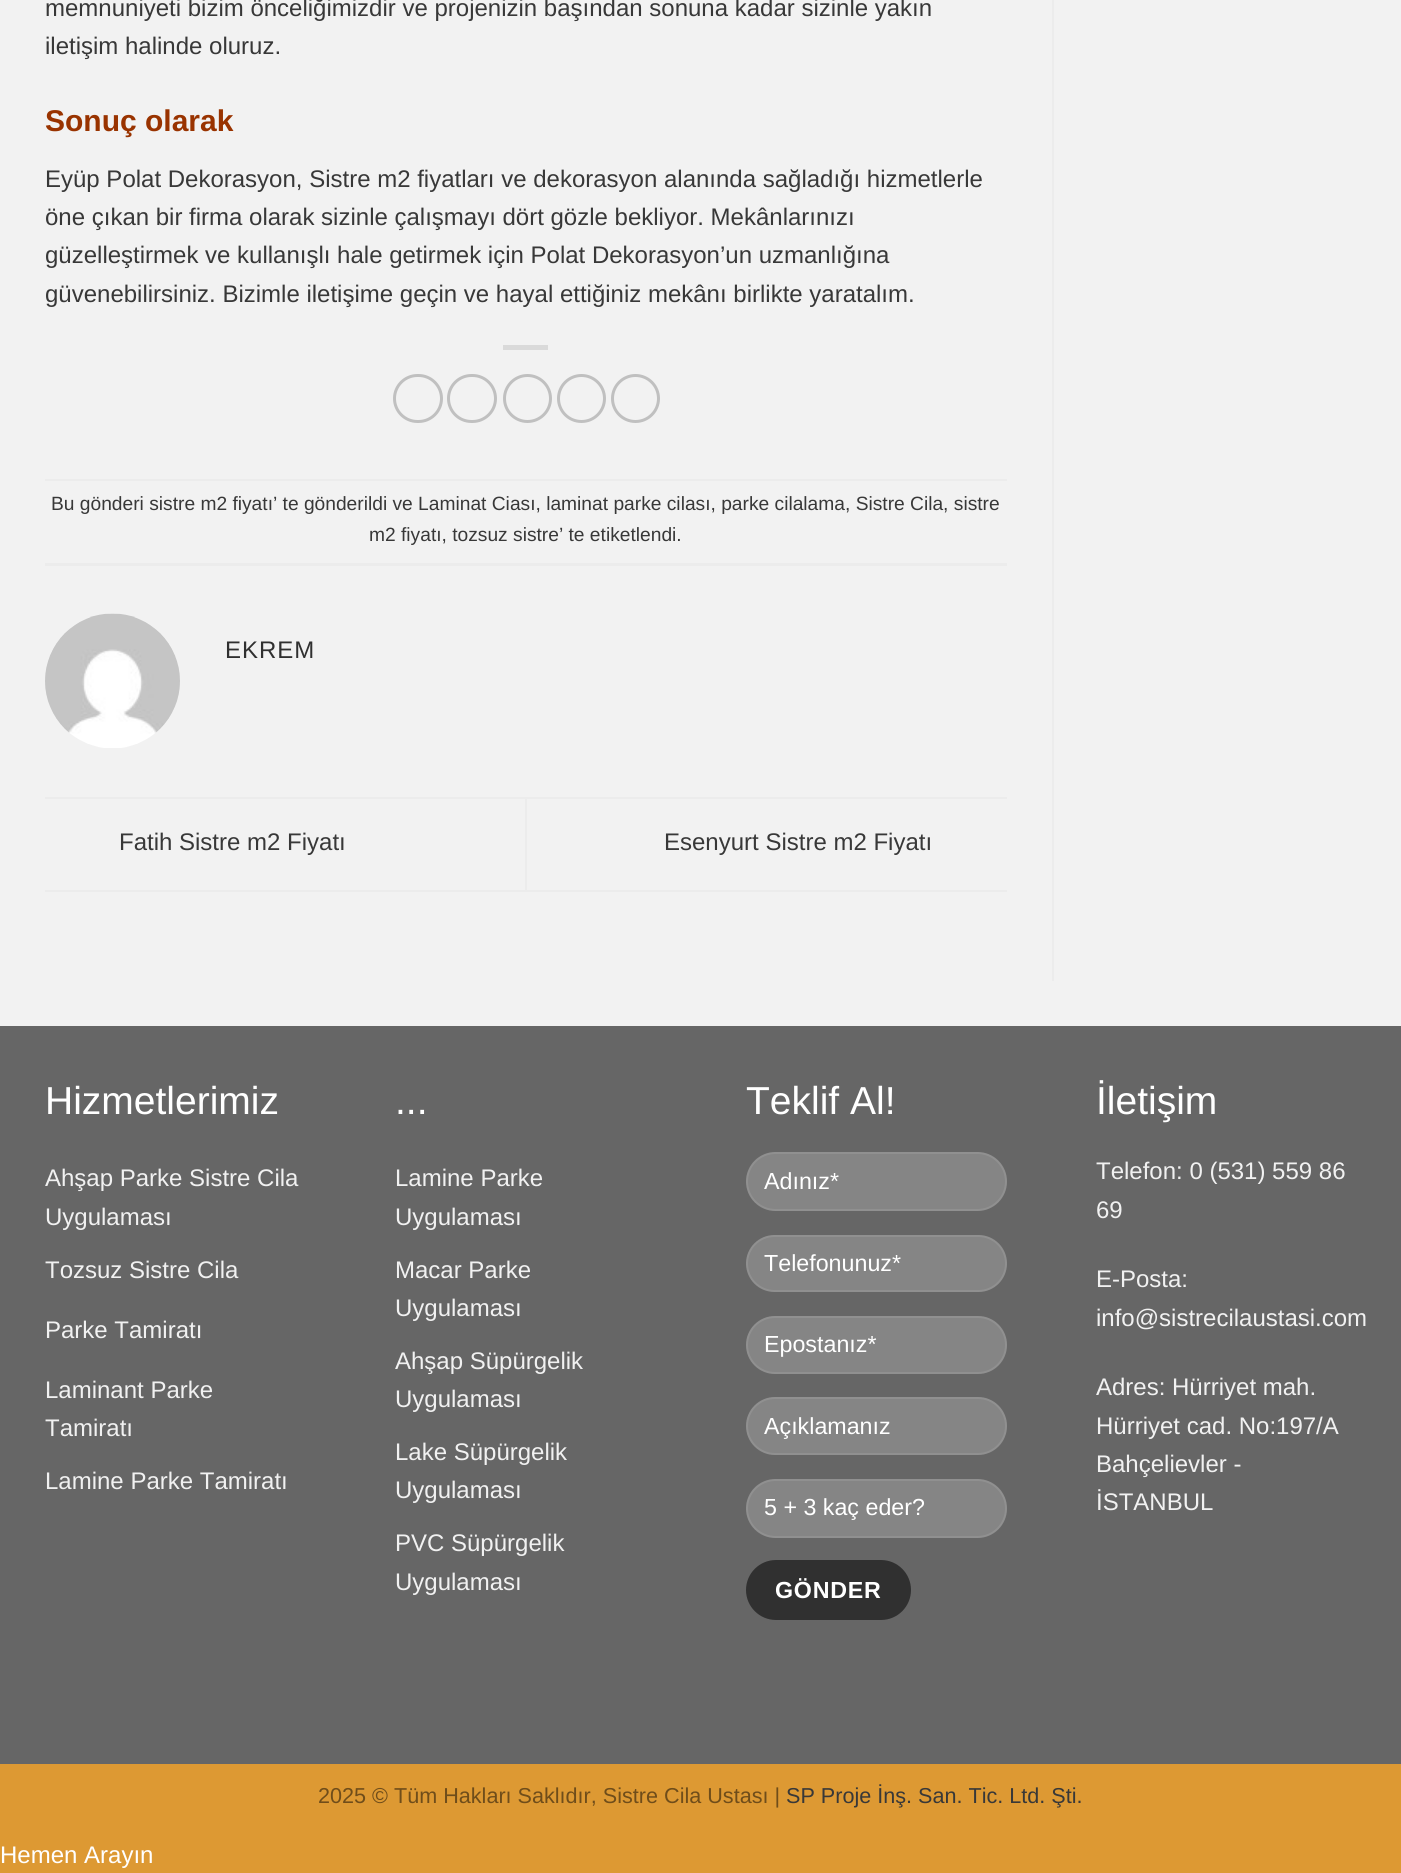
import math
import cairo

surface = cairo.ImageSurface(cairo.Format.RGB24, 1401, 1873)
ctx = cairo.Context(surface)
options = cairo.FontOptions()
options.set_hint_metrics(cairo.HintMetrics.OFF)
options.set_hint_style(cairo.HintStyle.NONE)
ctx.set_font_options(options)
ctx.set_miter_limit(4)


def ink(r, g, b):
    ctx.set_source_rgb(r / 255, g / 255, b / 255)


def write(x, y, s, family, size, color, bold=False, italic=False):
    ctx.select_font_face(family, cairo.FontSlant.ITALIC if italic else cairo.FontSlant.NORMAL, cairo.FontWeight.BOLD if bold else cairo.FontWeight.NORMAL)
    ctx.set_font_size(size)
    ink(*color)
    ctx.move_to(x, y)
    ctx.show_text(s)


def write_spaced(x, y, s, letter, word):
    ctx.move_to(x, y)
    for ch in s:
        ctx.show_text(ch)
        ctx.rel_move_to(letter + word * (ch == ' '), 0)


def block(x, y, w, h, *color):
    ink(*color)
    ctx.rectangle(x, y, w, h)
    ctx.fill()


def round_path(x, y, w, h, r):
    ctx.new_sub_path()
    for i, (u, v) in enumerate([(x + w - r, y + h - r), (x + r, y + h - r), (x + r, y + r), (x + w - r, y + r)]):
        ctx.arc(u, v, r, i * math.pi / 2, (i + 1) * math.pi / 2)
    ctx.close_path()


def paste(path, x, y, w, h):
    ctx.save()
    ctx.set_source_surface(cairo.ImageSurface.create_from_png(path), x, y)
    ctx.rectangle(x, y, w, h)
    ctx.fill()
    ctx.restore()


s1 = dict(family="Liberation Sans", size=24, color=(56, 56, 56))
s2 = dict(family="Liberation Sans", size=30, color=(153, 51, 0), bold=True)
s3 = dict(family="Liberation Sans", size=19.2, color=(56, 56, 56))
s4 = dict(family="Liberation Sans", size=39, color=(255, 255, 255))
s5 = dict(family="Liberation Sans", size=24, color=(241, 241, 241))
s6 = dict(family="Liberation Sans", size=23.25, color=(255, 255, 255))
s7 = dict(family="Liberation Sans", size=21.6, color=(111, 77, 26))
s8 = dict(family="Liberation Sans", size=21.6, color=(56, 56, 56))
s9 = dict(family="Liberation Sans", size=24, color=(255, 255, 255))

ink(221, 153, 51)
ctx.paint()
block(0, 0, 1401, 1026, 242, 242, 242)
write(45, 16, "memnuniyeti bizim önceliğimizdir ve projenizin başından sonuna kadar sizinle yakın", **s1)
write(45, 54, "iletişim halinde oluruz.", **s1)
write(45, 131, "Sonuç olarak", **s2)
write(45, 187, "Eyüp Polat Dekorasyon, Sistre m2 fiyatları ve dekorasyon alanında sağladığı hizmetlerle", **s1)
write(45, 225, "öne çıkan bir firma olarak sizinle çalışmayı dört gözle bekliyor. Mekânlarınızı", **s1)
write(45, 263, "güzelleştirmek ve kullanışlı hale getirmek için Polat Dekorasyon’un uzmanlığına", **s1)
write(45, 302, "güvenebilirsiniz. Bizimle iletişime geçin ve hayal ettiğiniz mekânı birlikte yaratalım.", **s1)
block(503, 345, 45, 5, 218, 218, 218)
round_path(394.5, 375.5, 47, 46, 23)
ink(192, 192, 192)
ctx.set_line_width(3)
ctx.stroke()
round_path(448.5, 375.5, 47, 46, 23)
ctx.stroke()
ctx.arc(527.5, 398.5, 23, 0, 2 * math.pi)
ctx.stroke()
ctx.arc(581.5, 398.5, 23, 0, 2 * math.pi)
ctx.stroke()
ctx.arc(635.5, 398.5, 23, 0, 2 * math.pi)
ctx.stroke()
block(45, 479, 962, 2, 236, 236, 236)
block(45, 563, 962, 3, 236, 236, 236)
write(51, 510, "Bu gönderi sistre m2 fiyatı’ te gönderildi ve Laminat Ciası, laminat parke cilası, parke cilalama, Sistre Cila, sistre", **s3)
write(369, 541, "m2 fiyatı, tozsuz sistre’ te etiketlendi.", **s3)
paste("pic1.png", 45, 613, 135, 135)
ctx.set_font_size(24)
ink(48, 48, 48)
write_spaced(225, 658, "EKREM", 1, 0)
block(45, 797, 962, 2, 236, 236, 236)
block(45, 890, 962, 2, 236, 236, 236)
write(119, 850, "Fatih Sistre m2 Fiyatı", **s1)
block(525, 798, 2, 92, 236, 236, 236)
write(664, 850, "Esenyurt Sistre m2 Fiyatı", **s1)
block(1052, 0, 2, 981, 236, 236, 236)
block(0, 1026, 1401, 738, 102, 102, 102)
write(45, 1114, "Hizmetlerimiz", **s4)
write(45, 1186, "Ahşap Parke Sistre Cila", **s5)
write(45, 1225, "Uygulaması", **s5)
write(45, 1278, "Tozsuz Sistre Cila", **s5)
write(45, 1338, "Parke Tamiratı", **s5)
write(45, 1398, "Laminant Parke", **s5)
write(45, 1436, "Tamiratı", **s5)
write(45, 1489, "Lamine Parke Tamiratı", **s5)
write(395, 1114, "...", **s4)
write(395, 1186, "Lamine Parke", **s5)
write(395, 1225, "Uygulaması", **s5)
write(395, 1278, "Macar Parke", **s5)
write(395, 1316, "Uygulaması", **s5)
write(395, 1369, "Ahşap Süpürgelik", **s5)
write(395, 1407, "Uygulaması", **s5)
write(395, 1460, "Lake Süpürgelik", **s5)
write(395, 1498, "Uygulaması", **s5)
write(395, 1551, "PVC Süpürgelik", **s5)
write(395, 1590, "Uygulaması", **s5)
write(746, 1114, "Teklif Al!", **s4)
ink(133, 133, 133)
round_path(746, 1152, 261, 59, 29.5)
ctx.fill()
round_path(747, 1153, 259, 57, 28.5)
ctx.set_source_rgba(1, 1, 1, 0.09)
ctx.set_line_width(2)
ctx.stroke()
write(764, 1189, "Adınız*", **s6)
ink(133, 133, 133)
round_path(746, 1235, 261, 57, 28.5)
ctx.fill()
round_path(747, 1236, 259, 55, 27.5)
ctx.set_source_rgba(1, 1, 1, 0.09)
ctx.stroke()
write(764, 1271, "Telefonunuz*", **s6)
ink(133, 133, 133)
round_path(746, 1316, 261, 58, 29)
ctx.fill()
round_path(747, 1317, 259, 56, 28)
ctx.set_source_rgba(1, 1, 1, 0.09)
ctx.stroke()
write(764, 1352, "Epostanız*", **s6)
ink(133, 133, 133)
round_path(746, 1397, 261, 58, 29)
ctx.fill()
round_path(747, 1398, 259, 56, 28)
ctx.set_source_rgba(1, 1, 1, 0.09)
ctx.stroke()
write(764, 1434, "Açıklamanız", **s6)
ink(133, 133, 133)
round_path(746, 1479, 261, 59, 29.5)
ctx.fill()
round_path(747, 1480, 259, 57, 28.5)
ctx.set_source_rgba(1, 1, 1, 0.09)
ctx.stroke()
write(764, 1515, "5 + 3 kaç eder?", **s6)
ink(48, 48, 48)
round_path(746, 1560, 165, 60, 30)
ctx.fill()
ctx.select_font_face("Liberation Sans", cairo.FontSlant.NORMAL, cairo.FontWeight.BOLD)
ink(255, 255, 255)
write_spaced(775, 1598, "GÖNDER", 0.75, 0)
write(1096, 1114, "İletişim", **s4)
write(1096, 1179, "Telefon: 0 (531) 559 86", **s5)
write(1096, 1218, "69", **s5)
write(1096, 1287, "E-Posta:", **s5)
write(1096, 1326, "info@sistrecilaustasi.com", **s5)
write(1096, 1395, "Adres: Hürriyet mah.", **s5)
write(1096, 1434, "Hürriyet cad. No:197/A", **s5)
write(1096, 1472, "Bahçelievler -", **s5)
write(1096, 1510, "İSTANBUL", **s5)
write(318, 1803, "2025 © Tüm Hakları Saklıdır, Sistre Cila Ustası |", **s7)
write(786, 1803, "SP Proje İnş. San. Tic. Ltd. Şti.", **s8)
write(0, 1863, "Hemen Arayın", **s9)
surface.write_to_png("screenshot.png")
